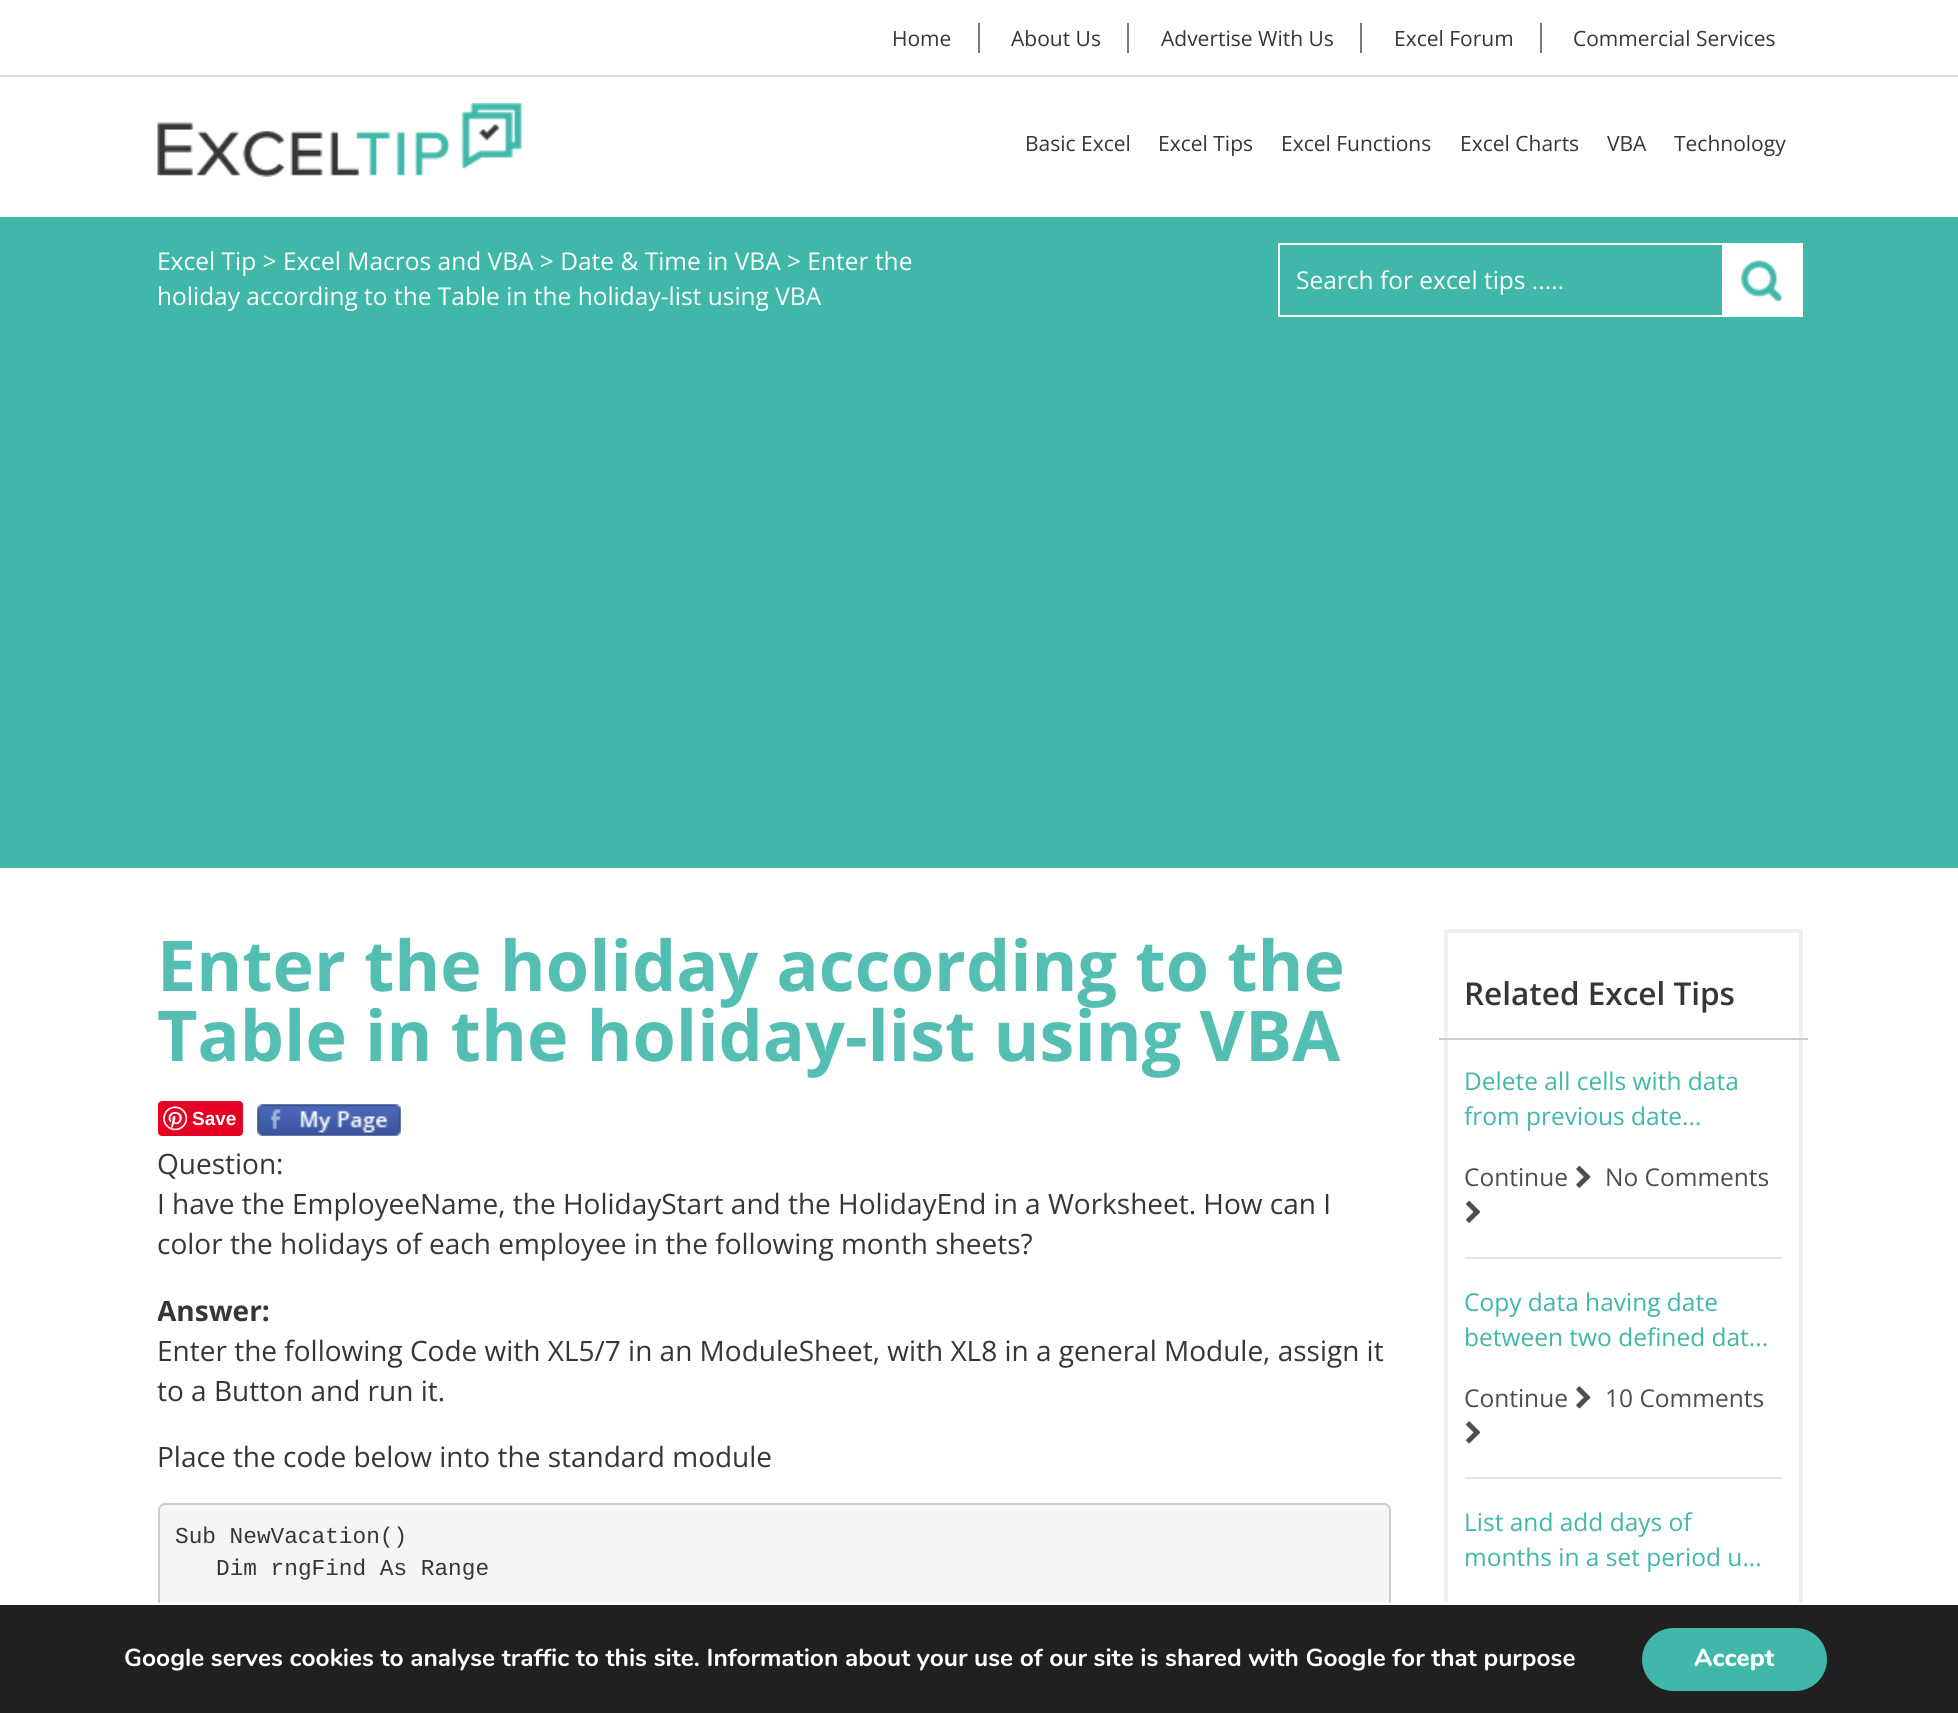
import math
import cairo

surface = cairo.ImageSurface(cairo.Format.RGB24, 1958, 1713)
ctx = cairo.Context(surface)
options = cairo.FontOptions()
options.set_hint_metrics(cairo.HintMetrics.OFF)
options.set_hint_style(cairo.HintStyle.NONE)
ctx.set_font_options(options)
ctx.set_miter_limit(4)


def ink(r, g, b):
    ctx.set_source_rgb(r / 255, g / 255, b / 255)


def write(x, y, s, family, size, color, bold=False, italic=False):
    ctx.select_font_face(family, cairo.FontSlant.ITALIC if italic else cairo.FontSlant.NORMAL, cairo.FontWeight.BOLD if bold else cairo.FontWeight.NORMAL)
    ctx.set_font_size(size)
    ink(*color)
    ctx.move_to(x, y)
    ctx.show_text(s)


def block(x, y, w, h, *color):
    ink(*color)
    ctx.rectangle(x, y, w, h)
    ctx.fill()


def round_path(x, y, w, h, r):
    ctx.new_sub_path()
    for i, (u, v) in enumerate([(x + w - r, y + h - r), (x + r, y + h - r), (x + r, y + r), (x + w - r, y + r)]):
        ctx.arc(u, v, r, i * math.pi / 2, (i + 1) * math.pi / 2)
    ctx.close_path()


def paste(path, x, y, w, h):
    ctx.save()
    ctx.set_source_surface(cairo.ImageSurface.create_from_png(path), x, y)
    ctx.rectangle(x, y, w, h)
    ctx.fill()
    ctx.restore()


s1 = dict(family="Open Sans", size=21, color=(54, 54, 54))
s2 = dict(family="Open Sans", size=24.5, color=(255, 255, 255))
s3 = dict(family="Open Sans", size=70, color=(85, 190, 178), bold=True)
s4 = dict(family="Liberation Sans", size=19, color=(255, 255, 255), bold=True)
s5 = dict(family="Open Sans", size=28, color=(54, 54, 54))
s6 = dict(family="Open Sans", size=28, color=(54, 54, 54), bold=True)
s7 = dict(family="Liberation Mono", size=22.75, color=(54, 54, 54))
s8 = dict(family="Open Sans SemiBold", size=31.5, color=(54, 54, 54))
s9 = dict(family="Open Sans", size=24.5, color=(63, 183, 169))
s10 = dict(family="Open Sans", size=24.5, color=(78, 78, 78))
s11 = dict(family="Nunito", size=24.5, color=(255, 255, 255), bold=True)
s12 = dict(family="Nunito ExtraBold", size=24.5, color=(255, 255, 255))

ink(255, 255, 255)
ctx.paint()
block(0, 75, 1958, 2, 220, 220, 220)
block(978, 23, 2, 30, 122, 122, 122)
write(892, 46, "Home", **s1)
block(1127, 23, 2, 30, 122, 122, 122)
write(1011, 46, "About Us", **s1)
block(1360, 23, 2, 30, 122, 122, 122)
write(1161, 46, "Advertise With Us", **s1)
block(1540, 23, 2, 30, 122, 122, 122)
write(1394, 46, "Excel Forum", **s1)
write(1573, 46, "Commercial Services", **s1)
paste("pic1.png", 157, 103, 365, 74)
write(1025, 151, "Basic Excel", **s1)
write(1158, 151, "Excel Tips", **s1)
write(1281, 151, "Excel Functions", **s1)
write(1460, 151, "Excel Charts", **s1)
write(1607, 151, "VBA", **s1)
write(1674, 151, "Technology", **s1)
block(0, 217, 1958, 651, 63, 183, 169)
write(157, 270, "Excel Tip > Excel Macros and VBA > Date & Time in VBA > Enter the", **s2)
write(157, 305, "holiday according to the Table in the holiday-list using VBA", **s2)
ctx.rectangle(1279, 244, 523, 72)
ctx.stroke()
write(1296, 289, "Search for excel tips .....", **s2)
block(1722, 245, 79, 70, 255, 255, 255)
paste("pic2.png", 1741, 260, 41, 41)
write(157, 991, "Enter the holiday according to the", **s3)
write(157, 1061, "Table in the holiday-list using VBA", **s3)
ink(230, 0, 35)
round_path(158, 1101, 85, 35, 4)
ctx.fill()
paste("pic3.png", 163, 1106, 24, 25)
write(192, 1125, "Save", **s4)
paste("pic4.png", 257, 1104, 144, 32)
write(157, 1174, "Question:", **s5)
write(157, 1214, "I have the EmployeeName, the HolidayStart and the HolidayEnd in a Worksheet. How can I", **s5)
write(157, 1254, "color the holidays of each employee in the following month sheets?", **s5)
ctx.save()
ctx.rectangle(158, 1292, 1233, 145)
ctx.clip()
write(157, 1321, "Answer:", **s6)
ctx.restore()
write(157, 1361, "Enter the following Code with XL5/7 in an ModuleSheet, with XL8 in a general Module, assign it", **s5)
write(157, 1401, "to a Button and run it.", **s5)
write(157, 1467, "Place the code below into the standard module", **s5)
ink(245, 245, 245)
round_path(159, 1504, 1231, 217, 6)
ctx.fill_preserve()
ink(204, 204, 204)
ctx.stroke()
write(175, 1543, "Sub NewVacation()", **s7)
write(216, 1575, "Dim rngFind As Range", **s7)
ctx.rectangle(1446, 931, 355, 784)
ink(240, 240, 240)
ctx.set_line_width(4)
ctx.stroke()
block(1439, 1038, 369, 2, 204, 204, 204)
write(1464, 1005, "Related Excel Tips", **s8)
block(1465, 1257, 317, 2, 230, 230, 230)
write(1464, 1090, "Delete all cells with data", **s9)
write(1464, 1125, "from previous date...", **s9)
write(1464, 1186, "Continue", **s10)
paste("pic5.png", 1576, 1165, 15, 23)
write(1605, 1186, "No Comments", **s10)
paste("pic6.png", 1466, 1200, 15, 23)
block(1465, 1477, 317, 2, 230, 230, 230)
write(1464, 1311, "Copy data having date", **s9)
write(1464, 1346, "between two defined dat...", **s9)
write(1464, 1407, "Continue", **s10)
paste("pic7.png", 1576, 1386, 15, 23)
write(1605, 1407, "10 Comments", **s10)
paste("pic8.png", 1466, 1421, 15, 23)
write(1464, 1531, "List and add days of", **s9)
write(1464, 1566, "months in a set period u...", **s9)
block(0, 1605, 1958, 108, 32, 32, 32)
block(158, 1603, 1645, 2, 255, 255, 255)
write(124, 1666, "Google serves cookies to analyse traffic to this site. Information about your use of our site is shared with Google for that purpose", **s11)
ink(63, 183, 169)
round_path(1642, 1628, 185, 63, 31.5)
ctx.fill()
write(1694, 1666, "Accept", **s12)
surface.write_to_png("screenshot.png")
